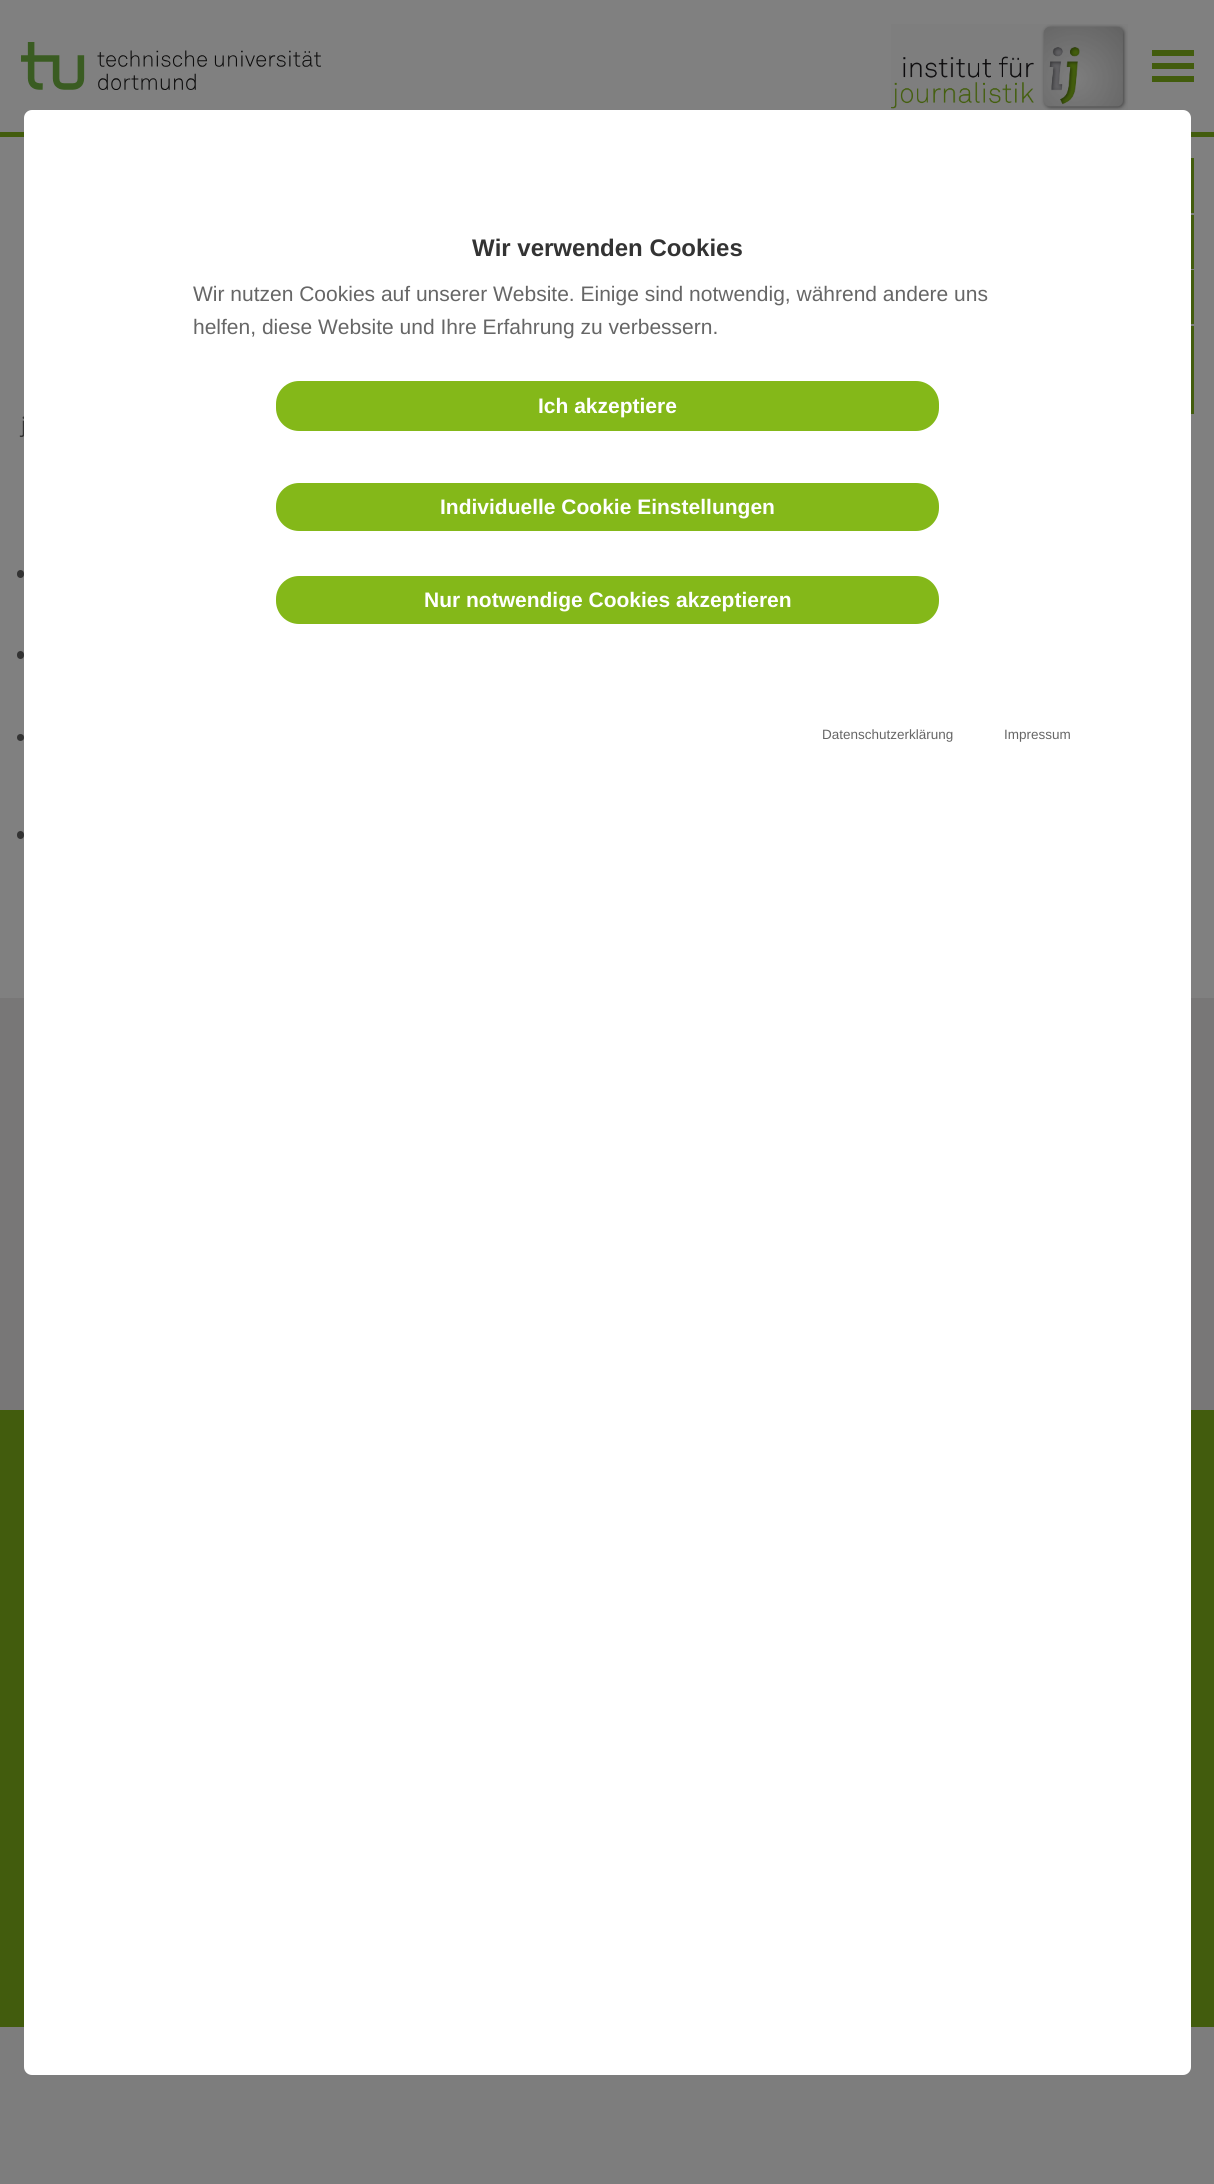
import math
import cairo

surface = cairo.ImageSurface(cairo.Format.RGB24, 1214, 2184)
ctx = cairo.Context(surface)
options = cairo.FontOptions()
options.set_hint_metrics(cairo.HintMetrics.OFF)
options.set_hint_style(cairo.HintStyle.NONE)
ctx.set_font_options(options)
ctx.set_miter_limit(4)


def ink(r, g, b):
    ctx.set_source_rgb(r / 255, g / 255, b / 255)


def write(x, y, s, family, size, color, bold=False, italic=False):
    ctx.select_font_face(family, cairo.FontSlant.ITALIC if italic else cairo.FontSlant.NORMAL, cairo.FontWeight.BOLD if bold else cairo.FontWeight.NORMAL)
    ctx.set_font_size(size)
    ink(*color)
    ctx.move_to(x, y)
    ctx.show_text(s)


def block(x, y, w, h, *color):
    ink(*color)
    ctx.rectangle(x, y, w, h)
    ctx.fill()


def round_path(x, y, w, h, r):
    ctx.new_sub_path()
    for i, (u, v) in enumerate([(x + w - r, y + h - r), (x + r, y + h - r), (x + r, y + r), (x + w - r, y + r)]):
        ctx.arc(u, v, r, i * math.pi / 2, (i + 1) * math.pi / 2)
    ctx.close_path()


def paste(path, x, y, w, h):
    ctx.save()
    ctx.set_source_surface(cairo.ImageSurface.create_from_png(path), x, y)
    ctx.rectangle(x, y, w, h)
    ctx.fill()
    ctx.restore()


s1 = dict(family="Open Sans", size=21, color=(51, 51, 51))
s2 = dict(family="Liberation Sans", size=24, color=(51, 51, 51), bold=True)
s3 = dict(family="Liberation Sans", size=21, color=(102, 102, 102))
s4 = dict(family="Liberation Sans", size=21, color=(255, 255, 255), bold=True)
s5 = dict(family="Liberation Sans", size=13.5, color=(102, 102, 102))

ink(125, 125, 125)
ctx.paint()
block(0, 0, 1214, 132, 128, 128, 128)
block(0, 132, 1214, 5, 66, 92, 13)
paste("pic1.png", 891, 24, 237, 86)
paste("pic2.png", 21, 42, 300, 48)
ctx.new_path()
ctx.move_to(1152, 50)
ctx.line_to(1194, 50)
ctx.line_to(1194, 56)
ctx.line_to(1152, 56)
ctx.close_path()
ctx.move_to(1152, 63)
ctx.line_to(1194, 63)
ctx.line_to(1194, 69)
ctx.line_to(1152, 69)
ctx.close_path()
ctx.move_to(1152, 76)
ctx.line_to(1194, 76)
ctx.line_to(1194, 82)
ctx.line_to(1152, 82)
ctx.close_path()
ctx.fill()
block(0, 137, 1214, 861, 128, 128, 128)
block(1191, 158, 3, 55, 66, 92, 13)
block(1191, 215, 3, 54, 66, 92, 13)
block(1191, 270, 3, 54, 66, 92, 13)
block(1191, 326, 3, 88, 66, 92, 13)
write(21, 432, "j", **s1)
round_path(17, 570, 7, 8, 3.5)
ctx.fill()
round_path(17, 651, 7, 8, 3.5)
ctx.fill()
ctx.arc(20.5, 737.5, 3.5, 0, 2 * math.pi)
ctx.fill()
round_path(17, 831, 7, 8, 3.5)
ctx.fill()
block(0, 998, 1214, 412, 120, 119, 119)
block(0, 1410, 1214, 617, 66, 92, 13)
ink(255, 255, 255)
round_path(24, 110, 1167, 1965, 8)
ctx.fill()
write(472, 256, "Wir verwenden Cookies", **s2)
write(193, 301, "Wir nutzen Cookies auf unserer Website. Einige sind notwendig, während andere uns", **s3)
write(193, 334, "helfen, diese Website und Ihre Erfahrung zu verbessern.", **s3)
ink(132, 184, 25)
round_path(276, 381, 663, 50, 23)
ctx.fill()
write(538, 413, "Ich akzeptiere", **s4)
ink(132, 184, 25)
round_path(276, 483, 663, 48, 23)
ctx.fill()
write(440, 514, "Individuelle Cookie Einstellungen", **s4)
ink(132, 184, 25)
round_path(276, 576, 663, 48, 23)
ctx.fill()
write(424, 607, "Nur notwendige Cookies akzeptieren", **s4)
write(822, 739, "Datenschutzerklärung", **s5)
write(1004, 739, "Impressum", **s5)
surface.write_to_png("screenshot.png")
